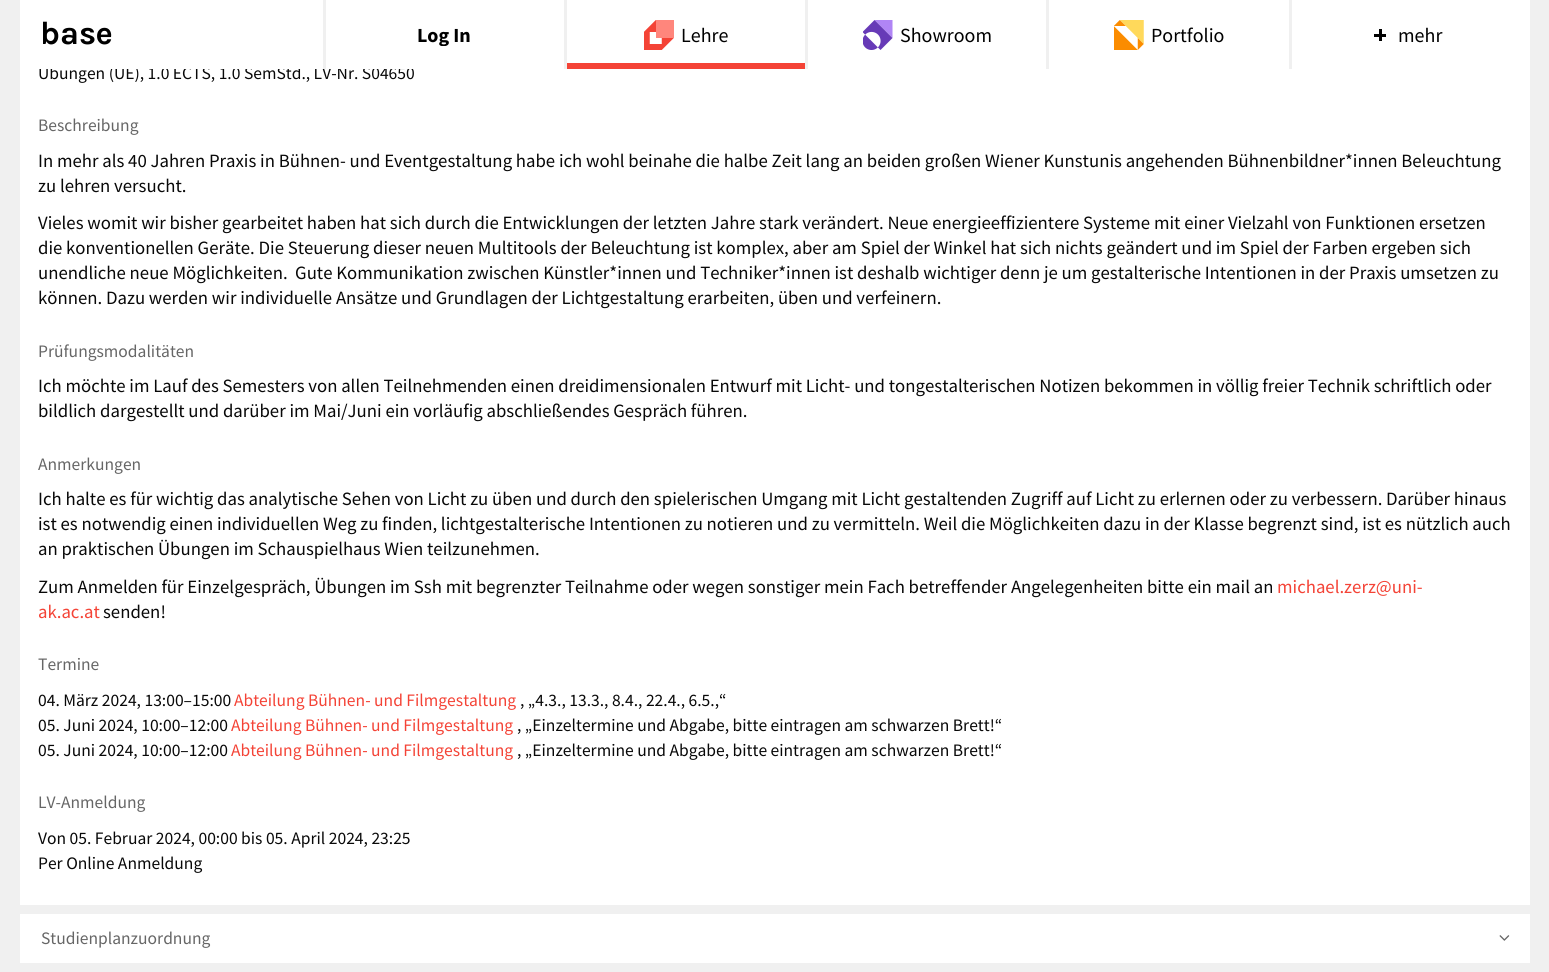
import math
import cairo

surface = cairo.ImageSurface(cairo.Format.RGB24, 1549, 972)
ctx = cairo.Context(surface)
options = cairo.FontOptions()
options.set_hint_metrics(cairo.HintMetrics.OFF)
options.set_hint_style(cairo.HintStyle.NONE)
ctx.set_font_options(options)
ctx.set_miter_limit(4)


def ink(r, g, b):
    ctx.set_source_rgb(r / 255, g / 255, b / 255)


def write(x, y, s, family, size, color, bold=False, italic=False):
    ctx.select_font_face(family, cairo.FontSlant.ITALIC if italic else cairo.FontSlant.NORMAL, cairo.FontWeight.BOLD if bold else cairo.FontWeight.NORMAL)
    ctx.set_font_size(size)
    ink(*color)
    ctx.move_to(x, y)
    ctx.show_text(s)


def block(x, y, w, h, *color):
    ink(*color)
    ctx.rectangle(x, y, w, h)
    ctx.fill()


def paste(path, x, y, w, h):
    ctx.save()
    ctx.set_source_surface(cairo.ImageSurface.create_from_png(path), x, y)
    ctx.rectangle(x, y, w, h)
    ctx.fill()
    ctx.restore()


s1 = dict(family="Source Sans Pro", size=17.5, color=(8, 8, 8))
s2 = dict(family="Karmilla", size=32.5, color=(0, 0, 0), bold=True)
s3 = dict(family="Source Sans Pro", size=20, color=(0, 0, 0), bold=True)
s4 = dict(family="Source Sans Pro", size=20, color=(0, 0, 0))
s5 = dict(family="Source Sans Pro", size=17.5, color=(102, 102, 102))
s6 = dict(family="Source Sans Pro", size=18.75, color=(8, 8, 8))
s7 = dict(family="Source Sans Pro", size=18.75, color=(244, 67, 54))
s8 = dict(family="Source Sans Pro", size=17.5, color=(244, 67, 54))

ink(240, 240, 240)
ctx.paint()
block(20, 69, 1510, 836, 255, 255, 255)
write(38, 79, "Übungen (UE), 1.0 ECTS, 1.0 SemStd., LV-Nr. S04650", **s1)
block(20, 0, 1510, 69, 255, 255, 255)
write(40, 44, "base", **s2)
block(323, 0, 3, 69, 240, 240, 240)
ctx.save()
ctx.rectangle(336, 24, 215, 22)
ctx.clip()
write(417, 42, "Log In", **s3)
ctx.restore()
block(566, 63, 239, 6, 244, 67, 54)
block(564, 0, 3, 69, 240, 240, 240)
paste("pic1.png", 644, 20, 30, 30)
write(681, 42, "Lehre", **s4)
block(805, 0, 3, 69, 240, 240, 240)
paste("pic2.png", 863, 20, 30, 30)
write(900, 42, "Showroom", **s4)
block(1046, 0, 3, 69, 240, 240, 240)
paste("pic3.png", 1114, 20, 30, 30)
write(1151, 42, "Portfolio", **s4)
block(1289, 0, 3, 69, 240, 240, 240)
block(1379, 29, 3, 12, 0, 0, 0)
write(1398, 42, "mehr", **s4)
block(1374, 34, 12, 3, 0, 0, 0)
write(38, 131, "Beschreibung", **s5)
write(38, 167, "In mehr als 40 Jahren Praxis in Bühnen- und Eventgestaltung habe ich wohl beinahe die halbe Zeit lang an beiden großen Wiener Kunstunis angehenden Bühnenbildner*innen Beleuchtung", **s6)
write(38, 192, "zu lehren versucht.", **s6)
write(38, 229, "Vieles womit wir bisher gearbeitet haben hat sich durch die Entwicklungen der letzten Jahre stark verändert. Neue energieeffizientere Systeme mit einer Vielzahl von Funktionen ersetzen", **s6)
write(38, 254, "die konventionellen Geräte. Die Steuerung dieser neuen Multitools der Beleuchtung ist komplex, aber am Spiel der Winkel hat sich nichts geändert und im Spiel der Farben ergeben sich", **s6)
write(38, 279, "unendliche neue Möglichkeiten.  Gute Kommunikation zwischen Künstler*innen und Techniker*innen ist deshalb wichtiger denn je um gestalterische Intentionen in der Praxis umsetzen zu", **s6)
write(38, 304, "können. Dazu werden wir individuelle Ansätze und Grundlagen der Lichtgestaltung erarbeiten, üben und verfeinern.", **s6)
write(38, 357, "Prüfungsmodalitäten", **s5)
write(38, 392, "Ich möchte im Lauf des Semesters von allen Teilnehmenden einen dreidimensionalen Entwurf mit Licht- und tongestalterischen Notizen bekommen in völlig freier Technik schriftlich oder", **s6)
write(38, 417, "bildlich dargestellt und darüber im Mai/Juni ein vorläufig abschließendes Gespräch führen.", **s6)
write(38, 470, "Anmerkungen", **s5)
write(38, 505, "Ich halte es für wichtig das analytische Sehen von Licht zu üben und durch den spielerischen Umgang mit Licht gestaltenden Zugriff auf Licht zu erlernen oder zu verbessern. Darüber hinaus", **s6)
write(38, 530, "ist es notwendig einen individuellen Weg zu finden, lichtgestalterische Intentionen zu notieren und zu vermitteln. Weil die Möglichkeiten dazu in der Klasse begrenzt sind, ist es nützlich auch", **s6)
write(38, 555, "an praktischen Übungen im Schauspielhaus Wien teilzunehmen.", **s6)
write(38, 593, "Zum Anmelden für Einzelgespräch, Übungen im Ssh mit begrenzter Teilnahme oder wegen sonstiger mein Fach betreffender Angelegenheiten bitte ein mail an", **s6)
write(1277, 593, "michael.zerz@uni-", **s7)
write(38, 618, "ak.ac.at", **s7)
write(103, 618, "senden!", **s6)
write(38, 670, "Termine", **s5)
write(38, 706, "04. März 2024, 13:00–15:00", **s1)
write(234, 706, "Abteilung Bühnen- und Filmgestaltung", **s8)
write(520, 706, ", „4.3., 13.3., 8.4., 22.4., 6.5.,“", **s1)
write(38, 731, "05. Juni 2024, 10:00–12:00", **s1)
write(231, 731, "Abteilung Bühnen- und Filmgestaltung", **s8)
write(517, 731, ", „Einzeltermine und Abgabe, bitte eintragen am schwarzen Brett!“", **s1)
write(38, 756, "05. Juni 2024, 10:00–12:00", **s1)
write(231, 756, "Abteilung Bühnen- und Filmgestaltung", **s8)
write(517, 756, ", „Einzeltermine und Abgabe, bitte eintragen am schwarzen Brett!“", **s1)
write(38, 808, "LV-Anmeldung", **s5)
write(38, 844, "Von 05. Februar 2024, 00:00 bis 05. April 2024, 23:25", **s1)
write(38, 869, "Per Online Anmeldung", **s1)
block(20, 914, 1510, 49, 255, 255, 255)
write(41, 944, "Studienplanzuordnung", **s5)
paste("pic4.png", 1499, 935, 11, 6)
surface.write_to_png("screenshot.png")
